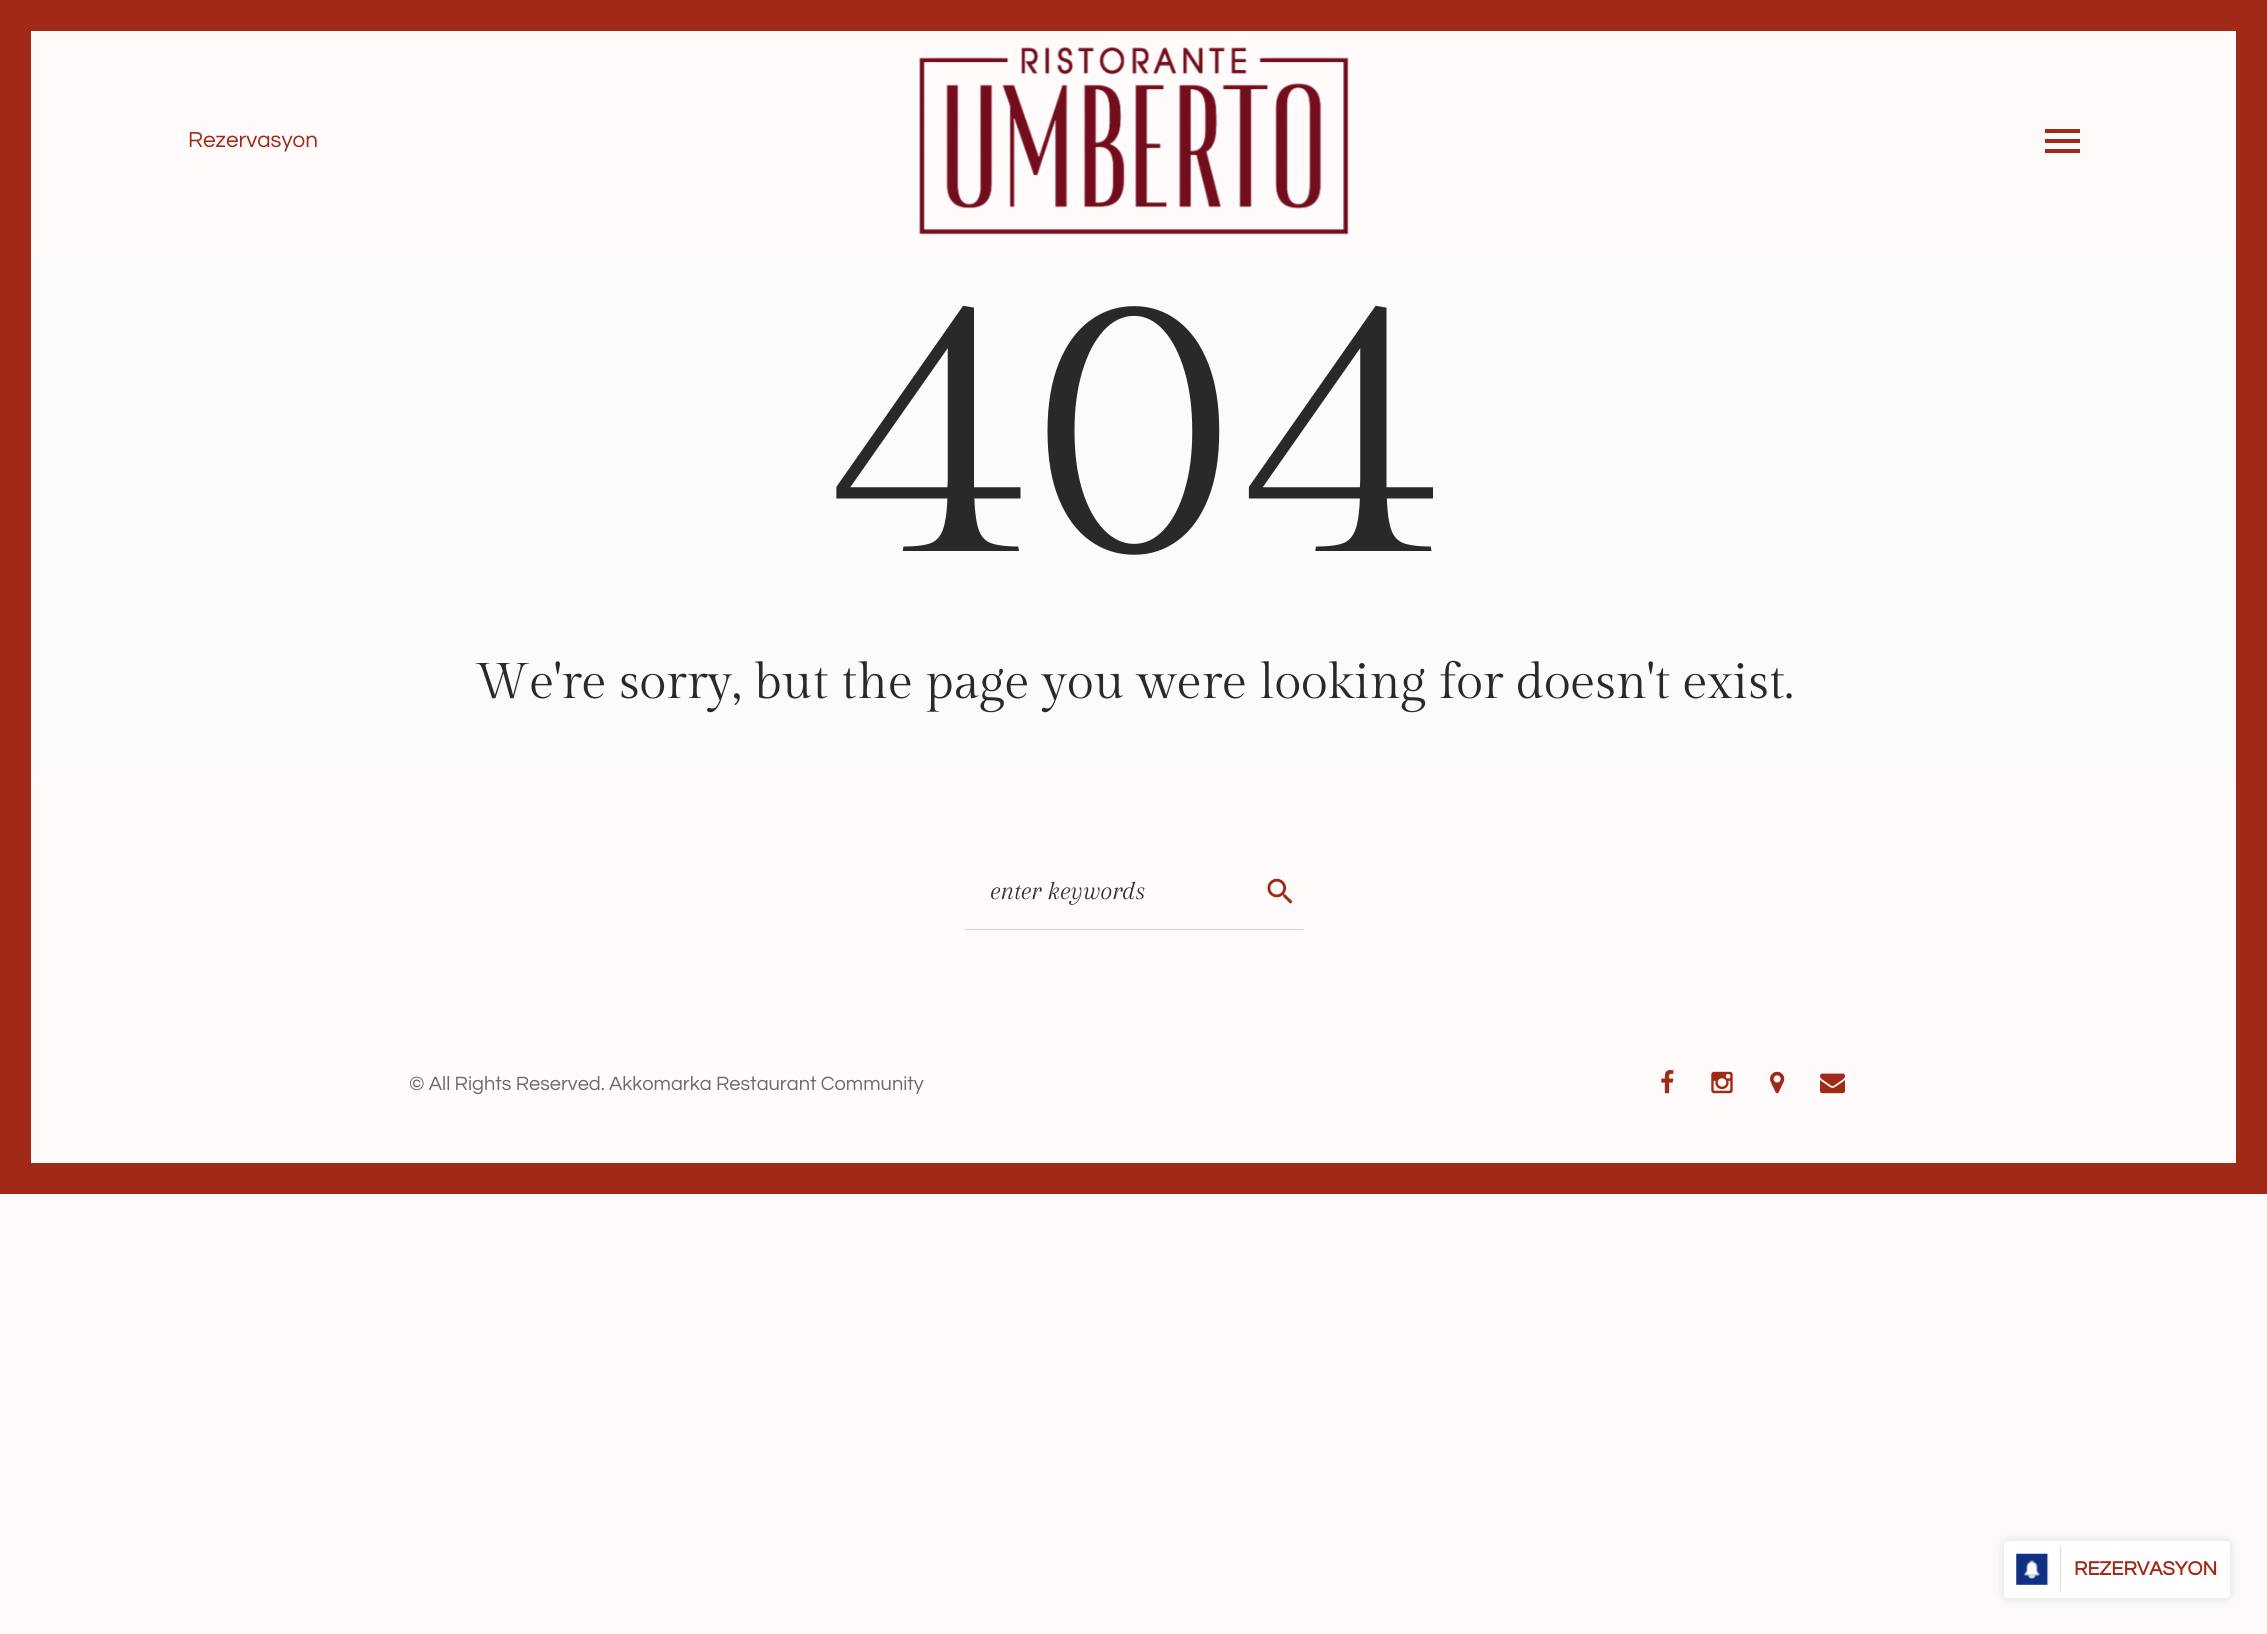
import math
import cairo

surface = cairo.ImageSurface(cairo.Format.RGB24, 2267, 1634)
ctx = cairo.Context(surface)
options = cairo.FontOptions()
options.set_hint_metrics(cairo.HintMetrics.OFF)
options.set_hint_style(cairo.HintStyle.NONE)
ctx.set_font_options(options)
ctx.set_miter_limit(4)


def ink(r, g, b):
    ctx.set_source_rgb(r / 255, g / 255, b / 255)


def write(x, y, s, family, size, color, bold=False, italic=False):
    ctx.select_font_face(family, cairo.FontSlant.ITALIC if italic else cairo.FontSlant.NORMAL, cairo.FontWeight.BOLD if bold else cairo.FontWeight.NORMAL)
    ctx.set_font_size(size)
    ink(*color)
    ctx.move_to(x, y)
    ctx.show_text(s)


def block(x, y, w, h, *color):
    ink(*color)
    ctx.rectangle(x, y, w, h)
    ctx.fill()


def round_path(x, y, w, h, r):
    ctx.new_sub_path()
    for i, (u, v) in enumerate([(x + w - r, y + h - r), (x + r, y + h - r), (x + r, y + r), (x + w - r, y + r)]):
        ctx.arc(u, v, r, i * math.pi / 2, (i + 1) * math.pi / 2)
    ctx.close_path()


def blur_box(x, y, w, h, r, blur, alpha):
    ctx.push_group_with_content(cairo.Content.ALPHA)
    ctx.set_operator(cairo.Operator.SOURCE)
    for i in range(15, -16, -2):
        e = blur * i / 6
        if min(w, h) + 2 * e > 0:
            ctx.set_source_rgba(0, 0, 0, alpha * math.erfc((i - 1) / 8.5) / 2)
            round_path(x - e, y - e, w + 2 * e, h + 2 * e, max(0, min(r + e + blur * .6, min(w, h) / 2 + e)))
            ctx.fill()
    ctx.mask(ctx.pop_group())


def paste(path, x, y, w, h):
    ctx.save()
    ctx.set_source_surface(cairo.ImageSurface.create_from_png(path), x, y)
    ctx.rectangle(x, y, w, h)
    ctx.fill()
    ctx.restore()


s1 = dict(family="Questrial", size=22.5, color=(161, 41, 24))
s2 = dict(family="Gilda Display", size=375, color=(41, 41, 41))
s3 = dict(family="Gilda Display", size=50, color=(41, 41, 41))
s4 = dict(family="Arapey", size=26.25, color=(47, 44, 42), italic=True)
s5 = dict(family="Questrial", size=20, color=(109, 105, 102))
s6 = dict(family="Questrial", size=20, color=(161, 41, 24), bold=True)

ink(255, 251, 251)
ctx.paint()
block(2236, 0, 31, 1163, 161, 41, 24)
block(31, 1163, 2236, 31, 161, 41, 24)
block(0, 0, 31, 1194, 161, 41, 24)
block(31, 0, 2205, 31, 161, 41, 24)
write(188, 147, "Rezervasyon", **s1)
paste("pic1.png", 919, 46, 430, 189)
block(2045, 139, 35, 4, 161, 41, 24)
block(2045, 129, 35, 4, 161, 41, 24)
block(2045, 149, 35, 4, 161, 41, 24)
block(31, 250, 2205, 528, 251, 251, 251)
write(824, 551, "404", **s2)
write(475, 698, "We're sorry, but the page you were looking for doesn't exist.", **s3)
block(965, 929, 338, 1, 213, 210, 209)
write(990, 899, "enter keywords", **s4)
paste("pic2.png", 1267, 878, 26, 26)
write(409, 1090, "© All Rights Reserved. Akkomarka Restaurant Community", **s5)
paste("pic3.png", 1661, 1070, 13, 24)
paste("pic4.png", 1711, 1071, 22, 23)
paste("pic5.png", 1770, 1071, 15, 23)
paste("pic6.png", 1820, 1073, 26, 21)
ink(221, 221, 221)
blur_box(2004, 1541, 226, 57, 4, 6, 1)
ink(255, 255, 255)
round_path(2004, 1541, 226, 57, 4)
ctx.fill()
paste("pic7.png", 2016, 1553, 33, 32)
write(2074, 1575, "REZERVASYON", **s6)
block(2060, 1546, 1, 45, 221, 221, 221)
surface.write_to_png("screenshot.png")
